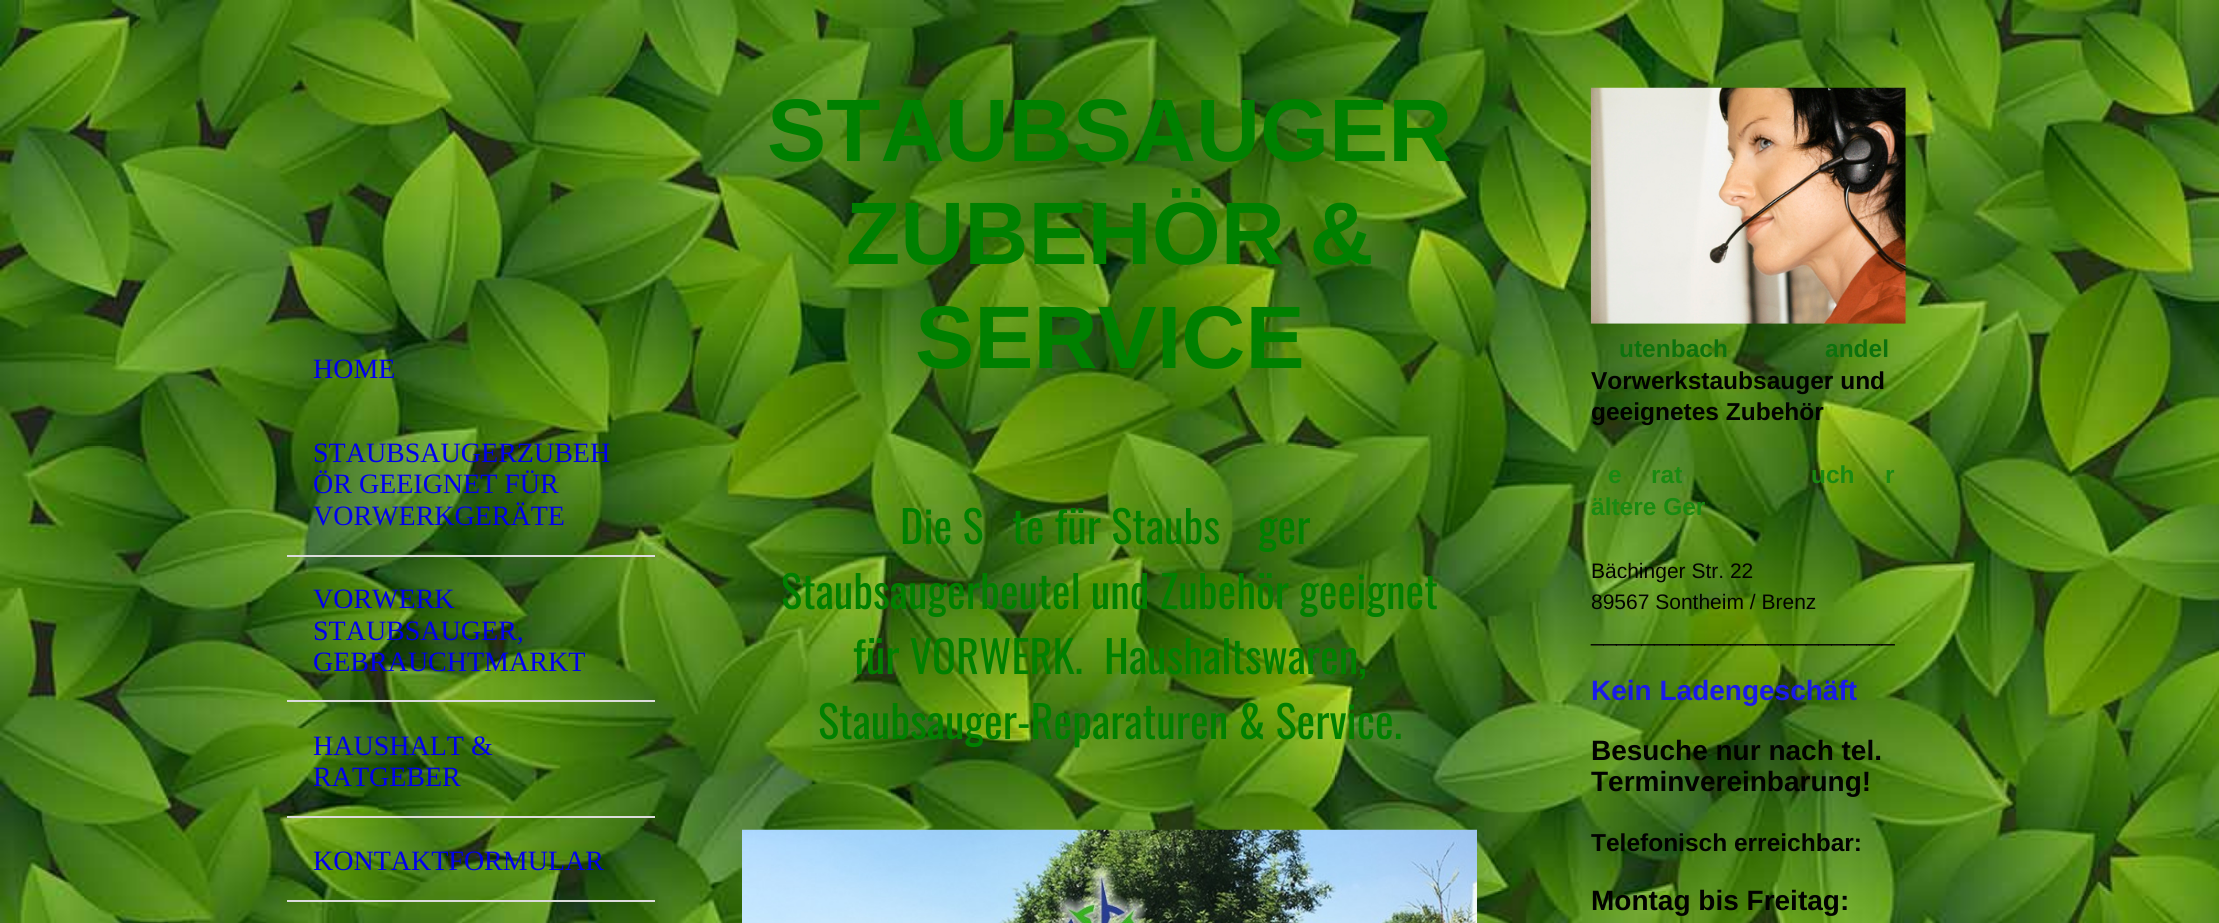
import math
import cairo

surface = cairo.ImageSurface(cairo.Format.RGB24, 2219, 923)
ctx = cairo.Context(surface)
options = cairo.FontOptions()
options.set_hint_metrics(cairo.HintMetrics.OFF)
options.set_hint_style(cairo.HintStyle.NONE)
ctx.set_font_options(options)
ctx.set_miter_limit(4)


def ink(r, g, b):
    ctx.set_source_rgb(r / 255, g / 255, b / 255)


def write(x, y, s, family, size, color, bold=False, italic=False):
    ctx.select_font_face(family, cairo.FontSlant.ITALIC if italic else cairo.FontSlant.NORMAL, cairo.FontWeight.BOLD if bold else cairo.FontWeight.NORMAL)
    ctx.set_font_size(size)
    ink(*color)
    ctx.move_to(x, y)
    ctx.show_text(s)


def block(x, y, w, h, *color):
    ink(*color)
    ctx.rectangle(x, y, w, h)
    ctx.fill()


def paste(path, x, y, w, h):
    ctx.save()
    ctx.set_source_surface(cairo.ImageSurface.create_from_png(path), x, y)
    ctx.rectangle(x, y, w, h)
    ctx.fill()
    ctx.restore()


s1 = dict(family="Liberation Serif", size=28, color=(0, 0, 238))
s2 = dict(family="Liberation Sans", size=88.75, color=(0, 128, 0), bold=True)
s3 = dict(family="Oswald", size=44.4, color=(0, 128, 0))
s4 = dict(family="Liberation Sans", size=24.5, color=(13, 114, 13), bold=True)
s5 = dict(family="Liberation Sans", size=24.5, color=(1, 2, 0), bold=True)
s6 = dict(family="Liberation Sans", size=24.5, color=(25, 138, 17), bold=True)
s7 = dict(family="Liberation Sans", size=21, color=(1, 2, 0))
s8 = dict(family="Liberation Sans", size=22.75, color=(1, 2, 0))
s9 = dict(family="Liberation Sans", size=28, color=(26, 26, 236), bold=True)
s10 = dict(family="Liberation Sans", size=28, color=(1, 2, 0), bold=True)

ink(255, 255, 255)
ctx.paint()
paste("pic1.png", 0, 0, 2219, 923)
write(313, 378, "HOME", **s1)
block(287, 555, 368, 2, 220, 220, 220)
write(313, 462, "STAUBSAUGERZUBEH", **s1)
write(313, 493, "ÖR GEEIGNET FÜR", **s1)
write(313, 525, "VORWERKGERÄTE", **s1)
block(287, 700, 368, 2, 220, 220, 220)
write(313, 608, "VORWERK", **s1)
write(313, 640, "STAUBSAUGER,", **s1)
write(313, 671, "GEBRAUCHTMARKT", **s1)
block(287, 816, 368, 2, 220, 220, 220)
write(313, 755, "HAUSHALT &", **s1)
write(313, 786, "RATGEBER", **s1)
block(287, 900, 368, 2, 220, 220, 220)
write(313, 870, "KONTAKTFORMULAR", **s1)
write(767, 161, "STAUBSAUGER", **s2)
write(846, 264, "ZUBEHÖR &", **s2)
write(915, 368, "SERVICE", **s2)
write(900, 544, "Die S", **s3)
write(1012, 544, "te für Staubs", **s3)
write(1258, 544, "ger", **s3)
write(781, 609, "Staubsaugerbeutel und Zubehör geeignet", **s3)
write(853, 674, "für VORWERK.", **s3)
write(1104, 674, "Haushaltswaren,", **s3)
write(818, 739, "Staubsauger-Reparaturen & Service.", **s3)
paste("pic2.png", 742, 829, 735, 94)
paste("pic3.png", 1590, 87, 316, 237)
write(1619, 357, "utenbach", **s4)
write(1825, 357, "andel", **s4)
write(1591, 389, "Vorwerkstaubsauger und", **s5)
write(1591, 420, "geeignetes Zubehör", **s5)
write(1608, 483, "e", **s6)
write(1651, 483, "rat", **s6)
write(1811, 483, "uch", **s6)
write(1885, 483, "r", **s6)
write(1591, 515, "ältere Ger", **s6)
write(1591, 578, "Bächinger Str. 22", **s7)
write(1591, 609, "89567 Sontheim / Brenz", **s7)
write(1591, 641, "________________________", **s8)
write(1591, 700, "Kein Ladengeschäft", **s9)
write(1591, 760, "Besuche nur nach tel.", **s10)
write(1591, 791, "Terminvereinbarung!", **s10)
write(1591, 851, "Telefonisch erreichbar:", **s5)
write(1591, 910, "Montag bis Freitag:", **s10)
surface.write_to_png("screenshot.png")
